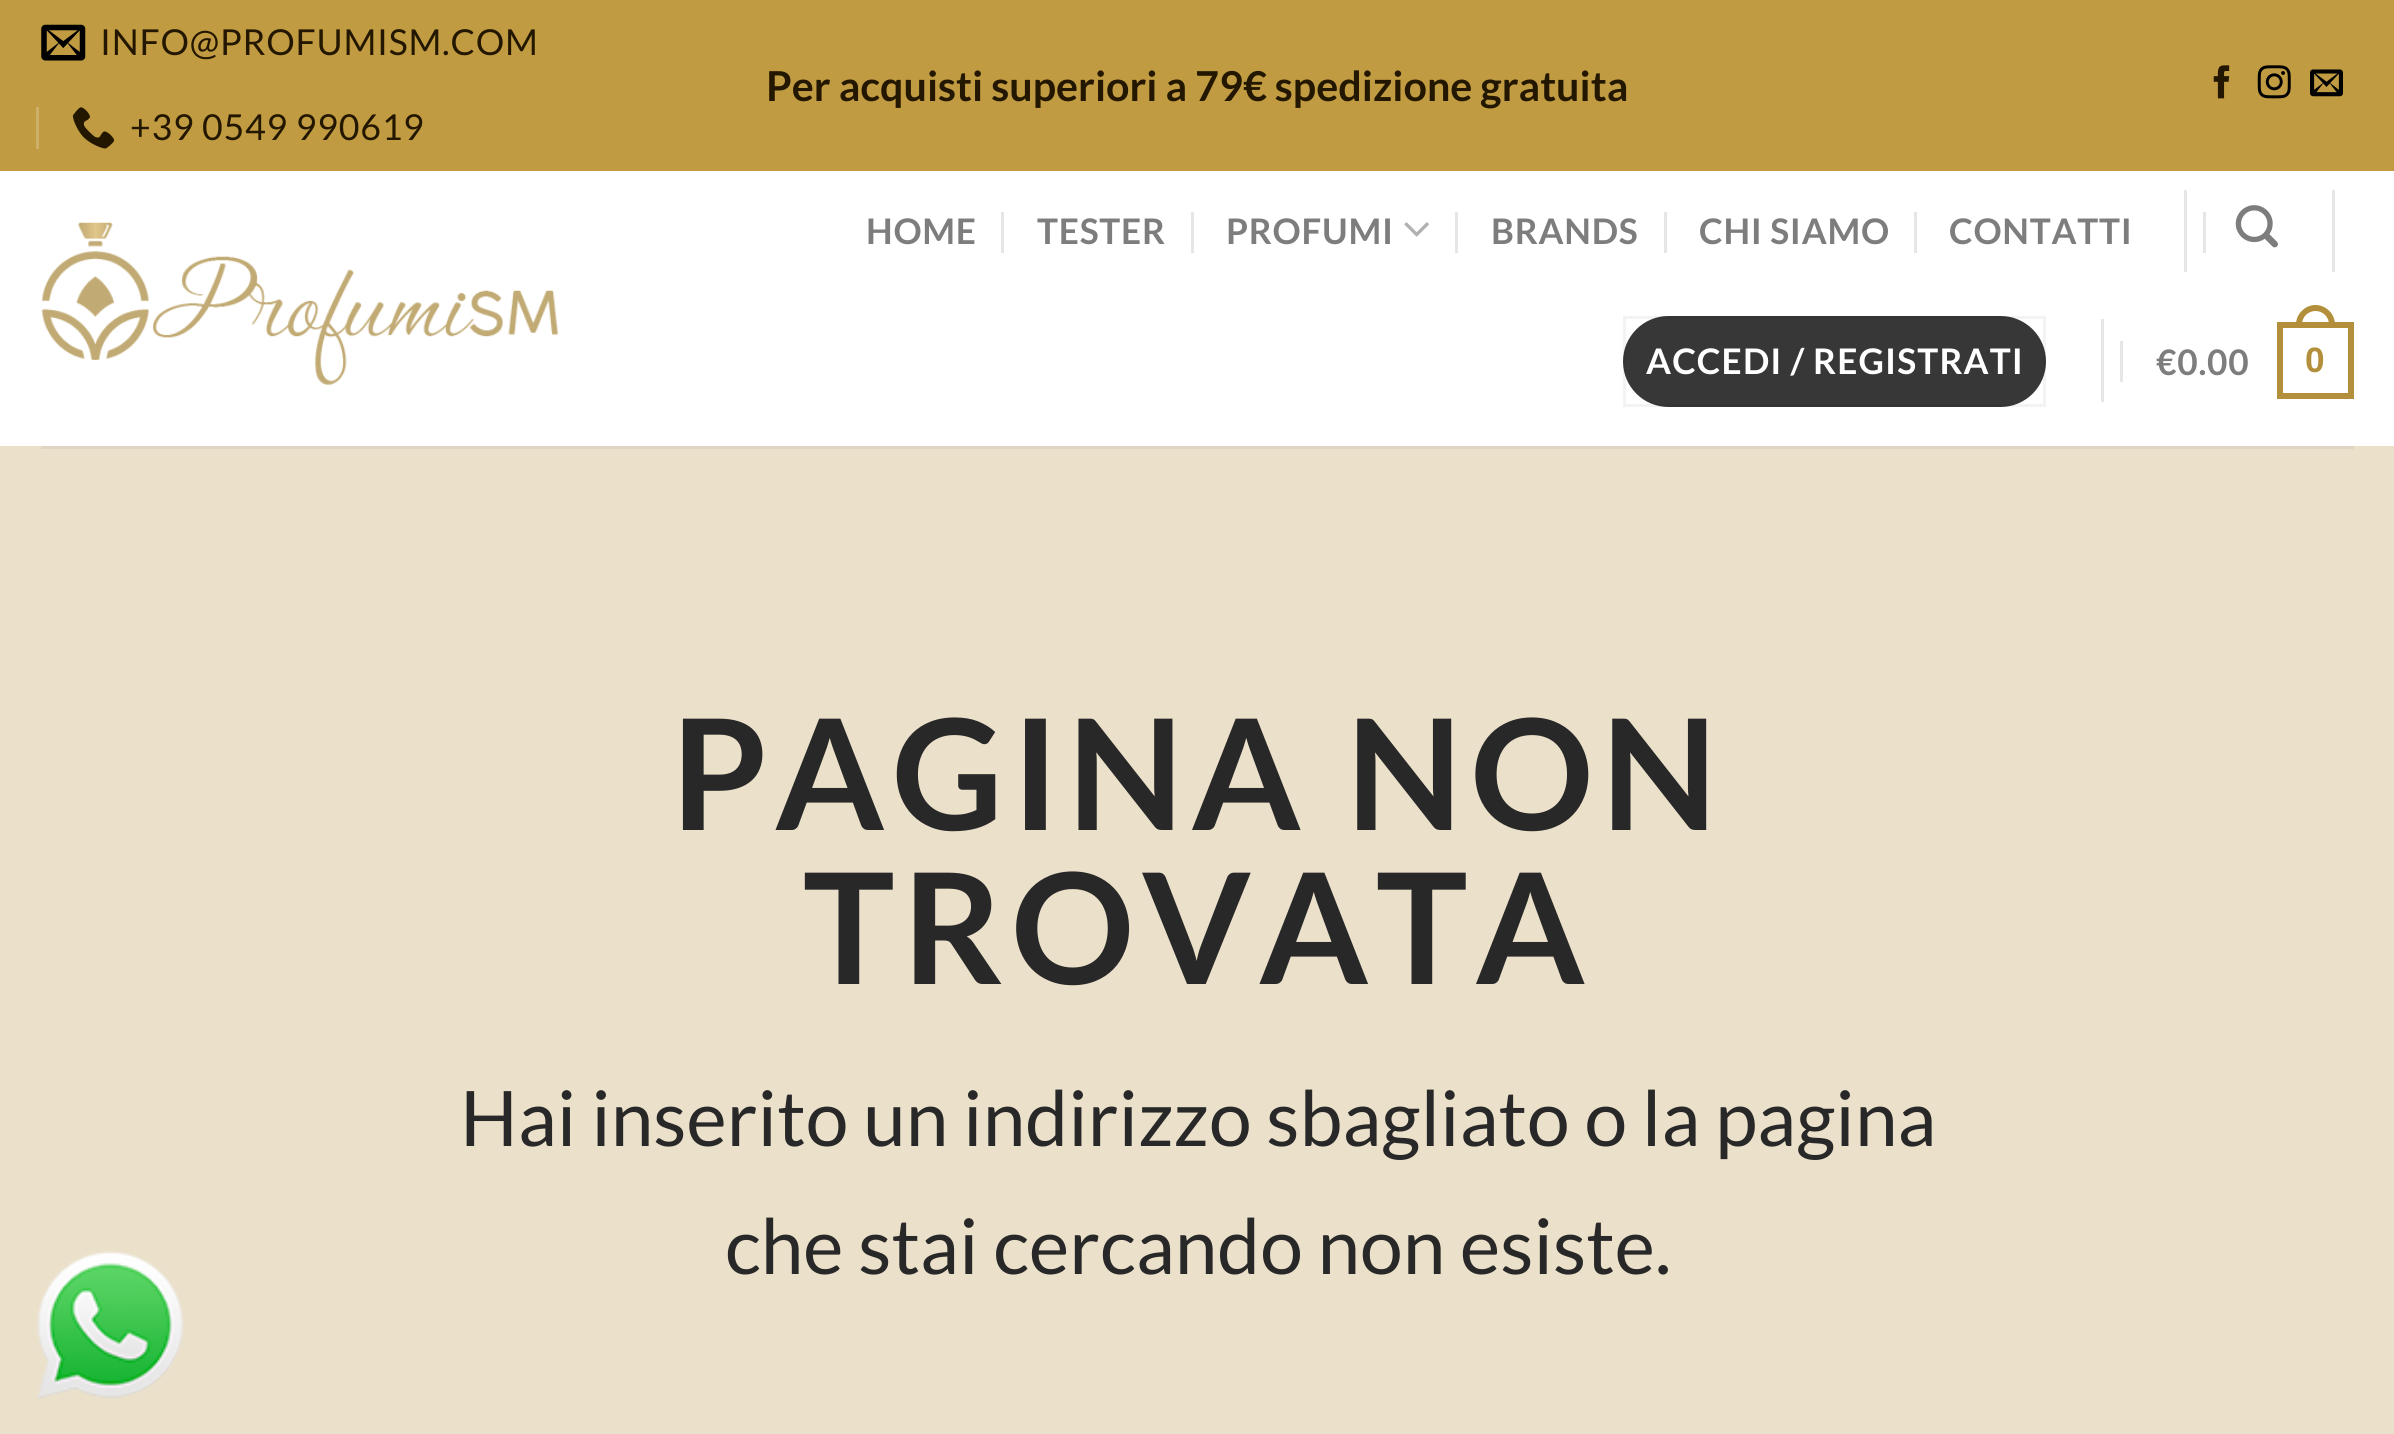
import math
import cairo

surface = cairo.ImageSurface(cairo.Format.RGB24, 2394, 1434)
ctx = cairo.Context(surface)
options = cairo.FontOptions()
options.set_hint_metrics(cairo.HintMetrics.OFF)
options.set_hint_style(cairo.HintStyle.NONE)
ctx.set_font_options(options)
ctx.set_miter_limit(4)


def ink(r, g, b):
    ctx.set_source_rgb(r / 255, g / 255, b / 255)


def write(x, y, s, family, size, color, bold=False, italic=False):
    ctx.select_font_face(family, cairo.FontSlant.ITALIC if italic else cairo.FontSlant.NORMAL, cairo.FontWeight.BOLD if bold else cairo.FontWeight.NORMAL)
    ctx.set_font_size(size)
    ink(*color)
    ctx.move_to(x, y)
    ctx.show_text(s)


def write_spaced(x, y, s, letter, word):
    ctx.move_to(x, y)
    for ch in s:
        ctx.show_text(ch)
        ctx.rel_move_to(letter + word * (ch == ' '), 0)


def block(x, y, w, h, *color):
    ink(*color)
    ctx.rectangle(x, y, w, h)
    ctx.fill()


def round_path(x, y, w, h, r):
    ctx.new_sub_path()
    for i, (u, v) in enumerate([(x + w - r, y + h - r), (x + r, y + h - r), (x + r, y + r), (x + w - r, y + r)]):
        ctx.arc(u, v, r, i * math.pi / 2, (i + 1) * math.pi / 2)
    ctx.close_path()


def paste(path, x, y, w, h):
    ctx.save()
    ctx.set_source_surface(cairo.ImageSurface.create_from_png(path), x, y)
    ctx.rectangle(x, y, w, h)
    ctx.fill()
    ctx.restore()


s1 = dict(family="Lato", size=41.25, color=(35, 23, 0), bold=True)
s2 = dict(family="Lato", size=76.6, color=(40, 40, 40))

ink(255, 255, 255)
ctx.paint()
block(0, 0, 2394, 171, 193, 155, 65)
paste("pic1.png", 41, 24, 45, 37)
ctx.select_font_face("Lato")
ctx.set_font_size(35.75)
ink(35, 23, 0)
write_spaced(100, 55, "INFO@PROFUMISM.COM", 0.75, 0)
block(36, 107, 3, 42, 205, 175, 103)
paste("pic2.png", 72, 107, 43, 42)
ink(35, 23, 0)
write_spaced(130, 140, "+39 0549 990619", 0.75, 0)
write(766, 101, "Per acquisti superiori a 79€ spedizione gratuita", **s1)
paste("pic3.png", 2213, 65, 17, 34)
paste("pic4.png", 2257, 65, 34, 34)
paste("pic5.png", 2310, 69, 33, 28)
paste("pic6.png", 41, 222, 517, 163)
ctx.set_font_size(35.25)
ink(125, 125, 125)
write_spaced(866, 244, "HOME", 0.75, 0)
block(1001, 212, 3, 41, 230, 230, 230)
ink(125, 125, 125)
write_spaced(1037, 244, "TESTER", 0.75, 0)
block(1191, 212, 3, 41, 230, 230, 230)
ink(125, 125, 125)
write_spaced(1226, 244, "PROFUMI", 0.75, 0)
paste("pic7.png", 1404, 222, 25, 15)
block(1455, 212, 3, 41, 230, 230, 230)
ink(125, 125, 125)
write_spaced(1491, 244, "BRANDS", 0.75, 0)
block(1664, 212, 3, 41, 230, 230, 230)
ink(125, 125, 125)
write_spaced(1699, 244, "CHI SIAMO", 0.75, 0)
block(1914, 212, 3, 41, 230, 230, 230)
ink(125, 125, 125)
write_spaced(1949, 244, "CONTATTI", 0.75, 0)
block(2184, 190, 3, 82, 230, 230, 230)
block(2203, 212, 3, 41, 230, 230, 230)
paste("pic8.png", 2235, 205, 43, 43)
block(2332, 190, 3, 82, 230, 230, 230)
ink(55, 55, 55)
round_path(1623, 316, 423, 91, 45.5)
ctx.fill()
ctx.rectangle(1624.5, 317.5, 420, 88)
ctx.set_source_rgba(0, 0, 0, 0.05)
ctx.set_line_width(3)
ctx.stroke()
ink(255, 255, 255)
write_spaced(1646, 374, "ACCEDI / REGISTRATI", 1.1, 0)
block(2101, 319, 3, 83, 230, 230, 230)
block(2120, 341, 3, 41, 230, 230, 230)
ink(125, 125, 125)
write_spaced(2156, 375, "€0.00", 0.75, 0)
ctx.rectangle(2280, 325, 71, 71)
ink(179, 143, 59)
ctx.set_line_width(6)
ctx.stroke()
ctx.set_fill_rule(cairo.FillRule.EVEN_ODD)
ctx.new_path()
ctx.move_to(2315.5, 305)
ctx.curve_to(2326, 305, 2335, 314, 2335, 324.5)
ctx.line_to(2335, 327)
ctx.line_to(2296, 327)
ctx.line_to(2296, 324.5)
ctx.curve_to(2296, 314, 2305, 305, 2315.5, 305)
ctx.close_path()
ctx.move_to(2315.5, 311)
ctx.curve_to(2323, 311, 2329, 317, 2329, 324.5)
ctx.line_to(2329, 327)
ctx.line_to(2302, 327)
ctx.line_to(2302, 324.5)
ctx.curve_to(2302, 317, 2308, 311, 2315.5, 311)
ctx.close_path()
ctx.fill()
ctx.select_font_face("Liberation Sans", cairo.FontSlant.NORMAL, cairo.FontWeight.BOLD)
write_spaced(2305, 372, "0", 0.75, 0)
block(0, 446, 2394, 988, 235, 224, 202)
block(41, 446, 2313, 3, 223, 213, 194)
ctx.select_font_face("Lato", cairo.FontSlant.NORMAL, cairo.FontWeight.BOLD)
ctx.set_font_size(154)
ink(40, 40, 40)
write_spaced(671, 830, "PAGINA NON", 7.75, 0)
write_spaced(803, 984, "TROVATA", 7.75, 0)
write(460, 1146, "Hai inserito un indirizzo sbagliato o la pagina", **s2)
write(725, 1274, "che stai cercando non esiste.", **s2)
paste("pic9.png", 37, 1251, 147, 148)
surface.write_to_png("screenshot.png")
